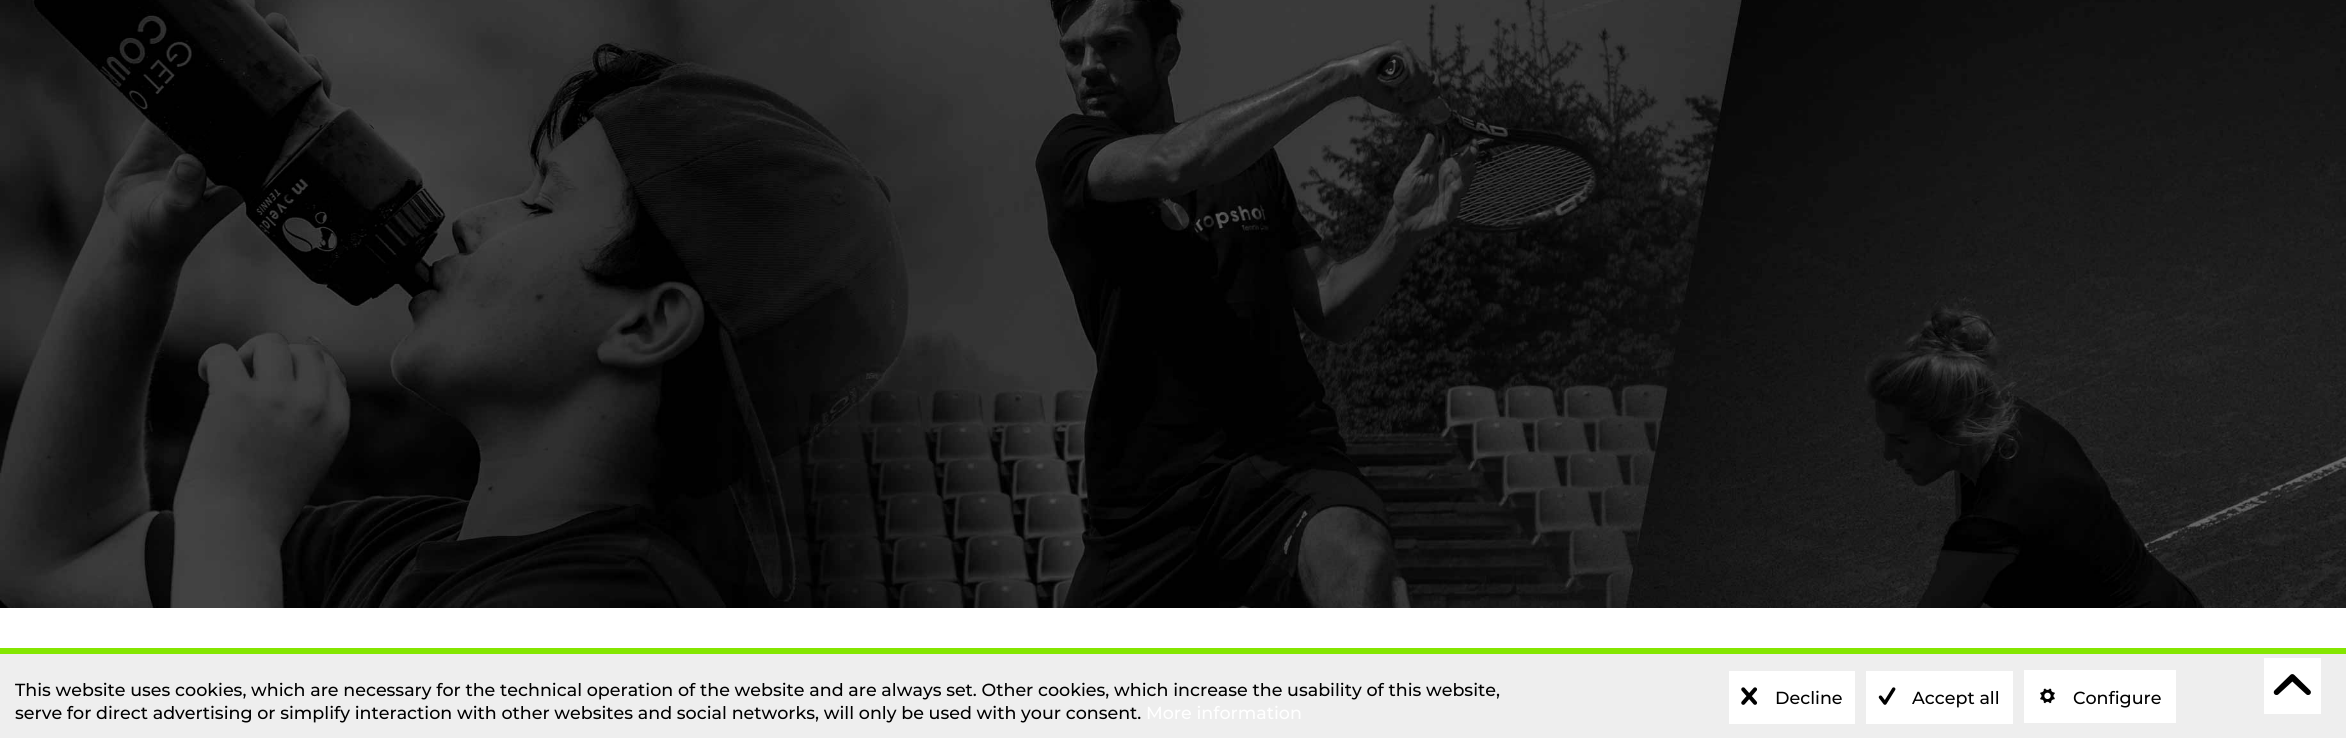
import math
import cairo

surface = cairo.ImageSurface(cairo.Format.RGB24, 2346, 738)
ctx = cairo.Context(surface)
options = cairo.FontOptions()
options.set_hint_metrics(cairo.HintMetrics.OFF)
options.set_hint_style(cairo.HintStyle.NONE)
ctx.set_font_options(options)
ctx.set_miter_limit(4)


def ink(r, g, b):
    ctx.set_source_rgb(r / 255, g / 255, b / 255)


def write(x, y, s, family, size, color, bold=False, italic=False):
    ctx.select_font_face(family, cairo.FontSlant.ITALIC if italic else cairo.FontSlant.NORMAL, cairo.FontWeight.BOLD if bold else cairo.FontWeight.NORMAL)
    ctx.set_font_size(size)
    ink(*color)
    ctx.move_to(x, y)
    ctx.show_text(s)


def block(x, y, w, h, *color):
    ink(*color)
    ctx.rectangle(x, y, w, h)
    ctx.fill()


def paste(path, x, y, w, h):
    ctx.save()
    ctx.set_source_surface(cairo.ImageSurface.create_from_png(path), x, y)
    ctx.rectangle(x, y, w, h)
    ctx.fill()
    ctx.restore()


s1 = dict(family="Montserrat Medium", size=17.5, color=(0, 0, 0))
s2 = dict(family="Montserrat Medium", size=17.5, color=(255, 255, 255))

ink(255, 255, 255)
ctx.paint()
paste("pic1.png", 0, 0, 2346, 608)
block(0, 654, 2346, 84, 238, 238, 238)
block(0, 648, 2346, 6, 132, 230, 0)
write(15, 696, "This website uses cookies, which are necessary for the technical operation of the website and are always set. Other cookies, which increase the usability of this website,", **s1)
write(15, 719, "serve for direct advertising or simplify interaction with other websites and social networks, will only be used with your consent.", **s1)
write(1146, 719, "More information", **s2)
block(1729, 671, 126, 53, 255, 255, 255)
paste("pic2.png", 1741, 687, 17, 18)
write(1775, 704, "Decline", **s1)
block(1866, 671, 147, 53, 255, 255, 255)
paste("pic3.png", 1878, 687, 18, 18)
write(1912, 704, "Accept all", **s1)
block(2024, 670, 152, 53, 255, 255, 255)
paste("pic4.png", 2040, 688, 15, 16)
write(2073, 704, "Configure", **s1)
block(2264, 658, 57, 56, 255, 255, 255)
paste("pic5.png", 2273, 674, 38, 21)
surface.write_to_png("screenshot.png")
